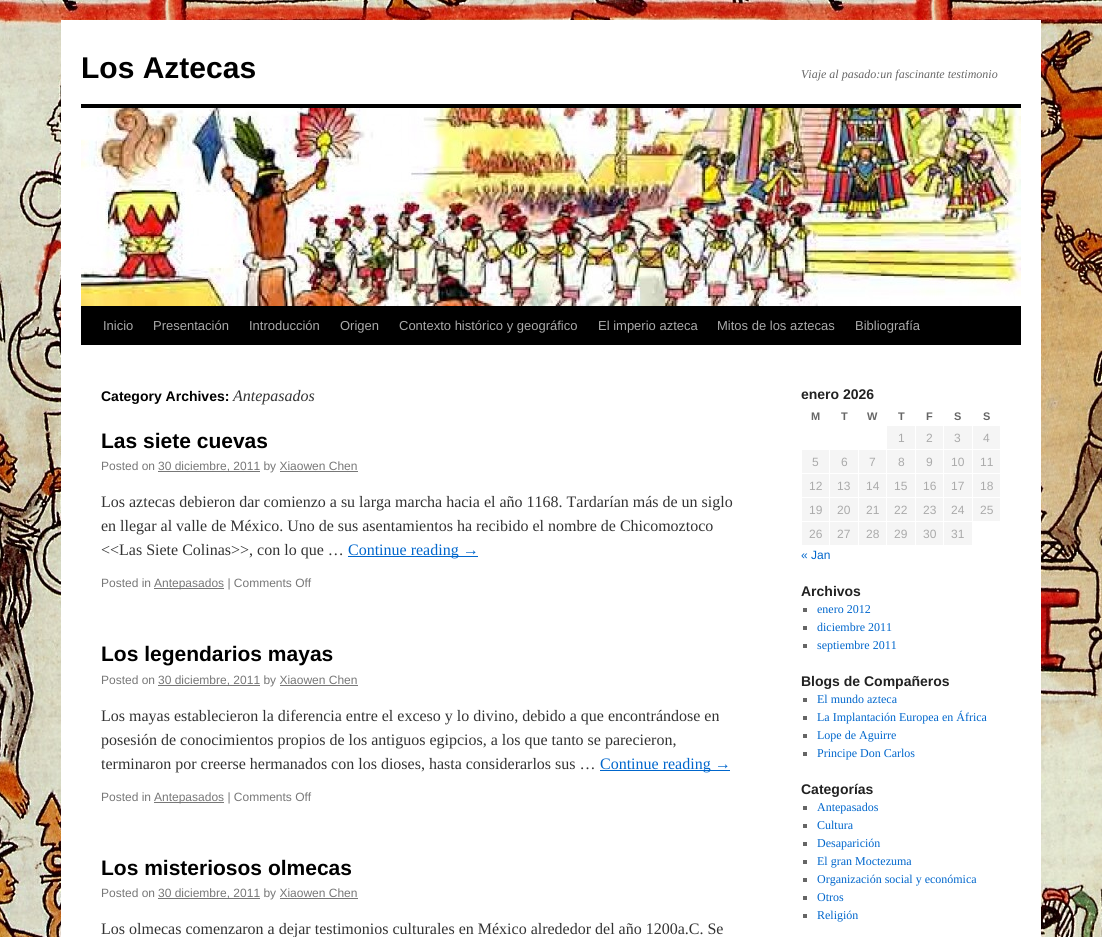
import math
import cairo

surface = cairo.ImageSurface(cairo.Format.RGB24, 1102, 937)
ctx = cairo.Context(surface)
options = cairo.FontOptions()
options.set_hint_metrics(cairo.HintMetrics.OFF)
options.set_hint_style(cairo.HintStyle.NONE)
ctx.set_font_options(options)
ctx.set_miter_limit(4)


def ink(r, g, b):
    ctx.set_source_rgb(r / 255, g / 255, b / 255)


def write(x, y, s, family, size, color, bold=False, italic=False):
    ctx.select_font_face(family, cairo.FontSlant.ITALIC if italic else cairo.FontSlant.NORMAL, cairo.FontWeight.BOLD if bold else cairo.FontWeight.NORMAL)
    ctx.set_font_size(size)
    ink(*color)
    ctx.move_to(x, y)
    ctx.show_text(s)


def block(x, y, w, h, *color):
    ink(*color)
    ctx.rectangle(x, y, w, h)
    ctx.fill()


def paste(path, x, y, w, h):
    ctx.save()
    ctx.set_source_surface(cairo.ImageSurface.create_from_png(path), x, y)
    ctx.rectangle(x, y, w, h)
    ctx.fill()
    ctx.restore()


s1 = dict(family="Liberation Sans", size=30, color=(0, 0, 0), bold=True)
s2 = dict(family="Liberation Serif", size=12, color=(102, 102, 102), italic=True)
s3 = dict(family="Liberation Sans", size=13, color=(170, 170, 170))
s4 = dict(family="Liberation Sans", size=14, color=(0, 0, 0), bold=True)
s5 = dict(family="Liberation Serif", size=16, color=(51, 51, 51), italic=True)
s6 = dict(family="Liberation Sans", size=21, color=(0, 0, 0), bold=True)
s7 = dict(family="Liberation Sans", size=12, color=(119, 119, 119))
s8 = dict(family="Liberation Serif", size=16, color=(51, 51, 51))
s9 = dict(family="Liberation Serif", size=16, color=(0, 102, 204))
s10 = dict(family="Liberation Sans", size=14, color=(34, 34, 34), bold=True)
s11 = dict(family="Liberation Sans", size=11, color=(102, 102, 102), bold=True)
s12 = dict(family="Liberation Sans", size=12, color=(170, 170, 170))
s13 = dict(family="Liberation Sans", size=12, color=(0, 102, 204))
s14 = dict(family="Liberation Serif", size=12, color=(0, 102, 204))

ink(255, 255, 255)
ctx.paint()
paste("pic1.png", 0, 0, 1102, 937)
block(61, 20, 980, 917, 255, 255, 255)
write(81, 78, "Los Aztecas", **s1)
write(801, 78, "Viaje al pasado:un fascinante testimonio", **s2)
block(81, 104, 940, 4, 0, 0, 0)
block(81, 306, 940, 39, 0, 0, 0)
paste("pic2.png", 81, 108, 940, 198)
write(103, 330, "Inicio", **s3)
write(153, 330, "Presentación", **s3)
write(249, 330, "Introducción", **s3)
write(340, 330, "Origen", **s3)
write(399, 330, "Contexto histórico y geográfico", **s3)
write(598, 330, "El imperio azteca", **s3)
write(717, 330, "Mitos de los aztecas", **s3)
write(855, 330, "Bibliografía", **s3)
write(101, 401, "Category Archives:", **s4)
write(233, 401, "Antepasados", **s5)
write(101, 448, "Las siete cuevas", **s6)
write(101, 470, "Posted on", **s7)
block(158, 471, 102, 1, 119, 119, 119)
write(158, 470, "30 diciembre, 2011 by Xiaowen Chen", **s7)
block(280, 471, 78, 1, 119, 119, 119)
write(101, 507, "Los aztecas debieron dar comienzo a su larga marcha hacia el año 1168. Tardarían más de un siglo", **s8)
write(101, 531, "en llegar al valle de México. Uno de sus asentamientos ha recibido el nombre de Chicomoztoco", **s8)
write(101, 555, "<<Las Siete Colinas>>, con lo que …", **s8)
block(348, 556, 130, 1, 0, 102, 204)
write(348, 555, "Continue reading →", **s9)
write(101, 587, "Posted in", **s7)
block(154, 588, 70, 1, 119, 119, 119)
write(154, 587, "Antepasados | Comments Off", **s7)
write(101, 661, "Los legendarios mayas", **s6)
write(101, 684, "Posted on", **s7)
block(158, 685, 102, 1, 119, 119, 119)
write(158, 684, "30 diciembre, 2011 by Xiaowen Chen", **s7)
block(280, 685, 78, 1, 119, 119, 119)
write(101, 721, "Los mayas establecieron la diferencia entre el exceso y lo divino, debido a que encontrándose en", **s8)
write(101, 745, "posesión de conocimientos propios de los antiguos egipcios, a los que tanto se parecieron,", **s8)
write(101, 769, "terminaron por creerse hermanados con los dioses, hasta considerarlos sus …", **s8)
block(600, 770, 130, 1, 0, 102, 204)
write(600, 769, "Continue reading →", **s9)
write(101, 801, "Posted in", **s7)
block(154, 802, 70, 1, 119, 119, 119)
write(154, 801, "Antepasados | Comments Off", **s7)
write(101, 875, "Los misteriosos olmecas", **s6)
write(101, 897, "Posted on", **s7)
block(158, 898, 102, 1, 119, 119, 119)
write(158, 897, "30 diciembre, 2011 by Xiaowen Chen", **s7)
block(280, 898, 78, 1, 119, 119, 119)
write(101, 934, "Los olmecas comenzaron a dejar testimonios culturales en México alrededor del año 1200a.C. Se", **s8)
write(801, 399, "enero 2026", **s10)
write(811, 420, "M", **s11)
write(841, 420, "T", **s11)
write(867, 420, "W", **s11)
write(898, 420, "T", **s11)
write(926, 420, "F", **s11)
write(954, 420, "S", **s11)
write(983, 420, "S", **s11)
block(887, 426, 28, 23, 245, 245, 245)
write(898, 442, "1", **s12)
block(916, 426, 27, 23, 245, 245, 245)
write(926, 442, "2", **s12)
block(944, 426, 28, 23, 245, 245, 245)
write(954, 442, "3", **s12)
block(973, 426, 27, 23, 245, 245, 245)
write(983, 442, "4", **s12)
block(802, 450, 27, 23, 245, 245, 245)
write(812, 466, "5", **s12)
block(830, 450, 28, 23, 245, 245, 245)
write(841, 466, "6", **s12)
block(859, 450, 27, 23, 245, 245, 245)
write(869, 466, "7", **s12)
block(887, 450, 28, 23, 245, 245, 245)
write(898, 466, "8", **s12)
block(916, 450, 27, 23, 245, 245, 245)
write(926, 466, "9", **s12)
block(944, 450, 28, 23, 245, 245, 245)
write(951, 466, "10", **s12)
block(973, 450, 27, 23, 245, 245, 245)
write(980, 466, "11", **s12)
block(802, 474, 27, 23, 245, 245, 245)
write(809, 490, "12", **s12)
block(830, 474, 28, 23, 245, 245, 245)
write(837, 490, "13", **s12)
block(859, 474, 27, 23, 245, 245, 245)
write(866, 490, "14", **s12)
block(887, 474, 28, 23, 245, 245, 245)
write(894, 490, "15", **s12)
block(916, 474, 27, 23, 245, 245, 245)
write(923, 490, "16", **s12)
block(944, 474, 28, 23, 245, 245, 245)
write(951, 490, "17", **s12)
block(973, 474, 27, 23, 245, 245, 245)
write(980, 490, "18", **s12)
block(802, 498, 27, 23, 245, 245, 245)
write(809, 514, "19", **s12)
block(830, 498, 28, 23, 245, 245, 245)
write(837, 514, "20", **s12)
block(859, 498, 27, 23, 245, 245, 245)
write(866, 514, "21", **s12)
block(887, 498, 28, 23, 245, 245, 245)
write(894, 514, "22", **s12)
block(916, 498, 27, 23, 245, 245, 245)
write(923, 514, "23", **s12)
block(944, 498, 28, 23, 245, 245, 245)
write(951, 514, "24", **s12)
block(973, 498, 27, 23, 245, 245, 245)
write(980, 514, "25", **s12)
block(802, 522, 27, 23, 245, 245, 245)
write(809, 538, "26", **s12)
block(830, 522, 28, 23, 245, 245, 245)
write(837, 538, "27", **s12)
block(859, 522, 27, 23, 245, 245, 245)
write(866, 538, "28", **s12)
block(887, 522, 28, 23, 245, 245, 245)
write(894, 538, "29", **s12)
block(916, 522, 27, 23, 245, 245, 245)
write(923, 538, "30", **s12)
block(944, 522, 28, 23, 245, 245, 245)
write(951, 538, "31", **s12)
write(801, 559, "« Jan", **s13)
write(801, 596, "Archivos", **s10)
block(803, 608, 4, 4, 102, 102, 102)
write(817, 613, "enero 2012", **s14)
block(803, 626, 4, 4, 102, 102, 102)
write(817, 631, "diciembre 2011", **s14)
block(803, 644, 4, 4, 102, 102, 102)
write(817, 649, "septiembre 2011", **s14)
write(801, 686, "Blogs de Compañeros", **s10)
block(803, 698, 4, 4, 102, 102, 102)
write(817, 703, "El mundo azteca", **s14)
block(803, 716, 4, 4, 102, 102, 102)
write(817, 721, "La Implantación Europea en África", **s14)
block(803, 734, 4, 4, 102, 102, 102)
write(817, 739, "Lope de Aguirre", **s14)
block(803, 752, 4, 4, 102, 102, 102)
write(817, 757, "Principe Don Carlos", **s14)
write(801, 794, "Categorías", **s10)
block(803, 806, 4, 4, 102, 102, 102)
write(817, 811, "Antepasados", **s14)
block(803, 824, 4, 4, 102, 102, 102)
write(817, 829, "Cultura", **s14)
block(803, 842, 4, 4, 102, 102, 102)
write(817, 847, "Desaparición", **s14)
block(803, 860, 4, 4, 102, 102, 102)
write(817, 865, "El gran Moctezuma", **s14)
block(803, 878, 4, 4, 102, 102, 102)
write(817, 883, "Organización social y económica", **s14)
block(803, 896, 4, 4, 102, 102, 102)
write(817, 901, "Otros", **s14)
block(803, 914, 4, 4, 102, 102, 102)
write(817, 919, "Religión", **s14)
surface.write_to_png("screenshot.png")
